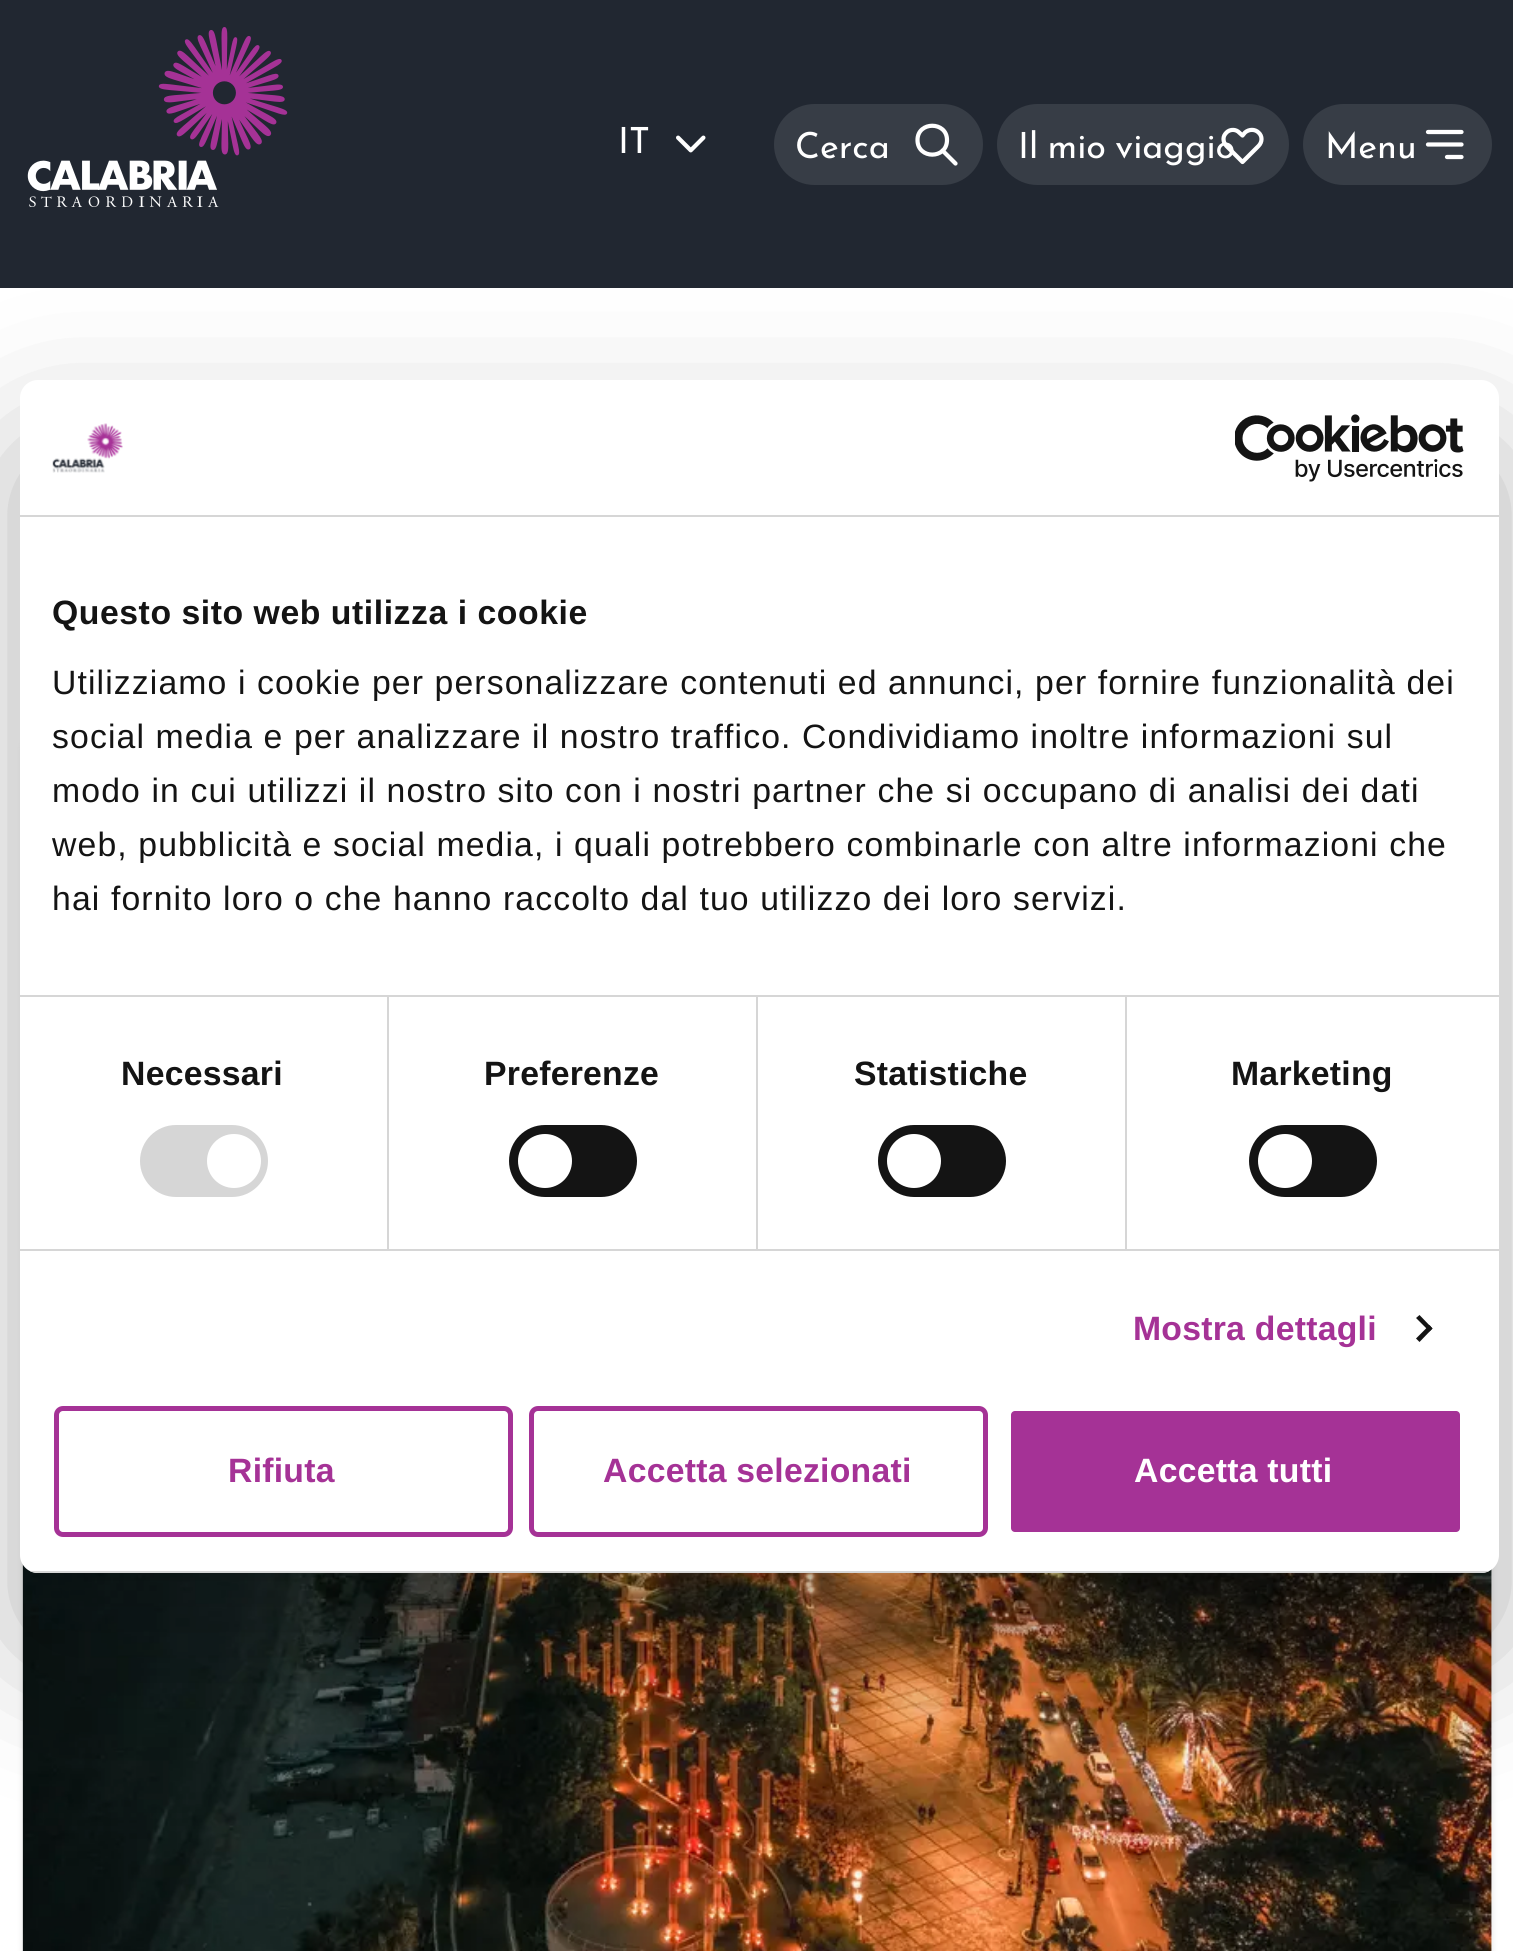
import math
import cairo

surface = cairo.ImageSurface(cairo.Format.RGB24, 1513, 1951)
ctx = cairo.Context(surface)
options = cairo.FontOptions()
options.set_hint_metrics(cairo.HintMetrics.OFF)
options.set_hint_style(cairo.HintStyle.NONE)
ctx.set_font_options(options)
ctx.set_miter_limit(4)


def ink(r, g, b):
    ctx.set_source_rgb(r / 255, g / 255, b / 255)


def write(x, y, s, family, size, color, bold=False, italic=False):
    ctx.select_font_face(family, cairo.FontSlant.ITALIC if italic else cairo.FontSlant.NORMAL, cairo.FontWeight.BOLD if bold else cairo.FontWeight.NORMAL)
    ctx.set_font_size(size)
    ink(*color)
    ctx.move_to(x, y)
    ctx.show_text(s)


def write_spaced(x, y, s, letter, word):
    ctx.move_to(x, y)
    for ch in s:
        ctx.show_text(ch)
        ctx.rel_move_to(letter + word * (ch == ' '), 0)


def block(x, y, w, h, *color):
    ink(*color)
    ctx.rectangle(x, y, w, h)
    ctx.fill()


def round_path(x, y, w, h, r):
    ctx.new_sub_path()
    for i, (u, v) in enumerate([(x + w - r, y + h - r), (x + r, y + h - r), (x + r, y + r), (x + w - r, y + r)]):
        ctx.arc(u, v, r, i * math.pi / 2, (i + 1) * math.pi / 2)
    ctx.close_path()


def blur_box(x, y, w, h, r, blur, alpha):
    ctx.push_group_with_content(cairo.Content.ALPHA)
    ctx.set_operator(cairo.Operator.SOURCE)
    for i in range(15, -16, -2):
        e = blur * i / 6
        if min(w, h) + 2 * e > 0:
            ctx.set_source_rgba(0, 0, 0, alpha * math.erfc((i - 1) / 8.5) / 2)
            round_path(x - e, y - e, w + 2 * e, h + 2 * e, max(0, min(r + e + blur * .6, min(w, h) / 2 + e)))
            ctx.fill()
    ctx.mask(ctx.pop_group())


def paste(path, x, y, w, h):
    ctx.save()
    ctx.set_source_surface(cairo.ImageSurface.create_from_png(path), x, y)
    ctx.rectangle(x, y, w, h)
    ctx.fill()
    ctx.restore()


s1 = dict(family="Josefin Sans Thin", size=36, color=(255, 255, 255))

ink(33, 39, 49)
ctx.paint()
paste("pic1.png", 27, 27, 261, 180)
write(618, 153, "IT", **s1)
paste("pic2.png", 676, 135, 30, 18)
ink(55, 61, 70)
round_path(774, 104, 209, 81, 40.5)
ctx.fill()
write(795, 158, "Cerca", **s1)
ctx.new_path()
ctx.move_to(955.5, 163.5)
ctx.line_to(942.5, 150.5)
ctx.move_to(947, 140)
ctx.curve_to(947, 159.5, 917.5, 159.5, 917.5, 140)
ctx.curve_to(917.5, 121, 947, 121, 947, 140)
ctx.close_path()
ctx.set_line_width(4.2)
ctx.set_line_cap(cairo.LineCap.ROUND)
ctx.set_line_join(cairo.LineJoin.ROUND)
ctx.stroke()
ink(55, 61, 70)
round_path(997, 104, 292, 81, 40.5)
ctx.fill()
ink(255, 255, 255)
write_spaced(1018, 158, "Il mio viaggio", 0, -2)
ctx.new_path()
ctx.move_to(1226.5, 132.5)
ctx.curve_to(1224.5, 134.5, 1223.5, 136.5, 1223.5, 139)
ctx.curve_to(1223.5, 141.5, 1224.5, 144, 1226.5, 146)
ctx.line_to(1242.5, 162)
ctx.line_to(1258.5, 146)
ctx.curve_to(1262.5, 142, 1262.5, 136, 1258.5, 132.5)
ctx.curve_to(1255, 129, 1249, 129, 1245, 132.5)
ctx.line_to(1242.5, 135.5)
ctx.line_to(1238, 131.5)
ctx.curve_to(1234.5, 129, 1229.5, 129.5, 1226.5, 132.5)
ctx.close_path()
ctx.stroke()
ink(55, 61, 70)
round_path(1303, 104, 189, 81, 40.5)
ctx.fill()
write(1325, 158, "Menu", **s1)
ctx.new_path()
ctx.move_to(1428, 132)
ctx.line_to(1461.5, 132)
ctx.move_to(1428, 144.5)
ctx.line_to(1461.5, 144.5)
ctx.move_to(1447, 157)
ctx.line_to(1461.5, 157)
ctx.stroke()
block(0, 288, 1513, 1663, 255, 255, 255)
ink(0, 0, 0)
blur_box(23, 718, 1469, 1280, 36, 3.5, 0.1)
paste("pic3.png", 22, 1563, 1470, 388)
blur_box(20, 452, 1479, 1193, 18, 76.5, 0.3)
ink(255, 255, 255)
round_path(20, 380, 1479, 1193, 18)
ctx.fill()
block(20, 515, 1479, 2, 214, 214, 214)
paste("pic4.png", 52, 423, 71, 50)
paste("pic5.png", 1235, 414, 229, 68)
block(20, 995, 1479, 2, 214, 214, 214)
ctx.select_font_face("Liberation Sans", cairo.FontSlant.NORMAL, cairo.FontWeight.BOLD)
ctx.set_font_size(33.75)
ink(20, 20, 20)
write_spaced(52, 624, "Questo sito web utilizza i cookie", 0.55, 0)
ctx.select_font_face("Liberation Sans")
write_spaced(52, 694, "Utilizziamo i cookie per personalizzare contenuti ed annunci, per fornire funzionalità dei", 1.12, 0)
write_spaced(52, 748, "social media e per analizzare il nostro traffico. Condividiamo inoltre informazioni sul", 1.12, 0)
write_spaced(52, 802, "modo in cui utilizzi il nostro sito con i nostri partner che si occupano di analisi dei dati", 1.12, 0)
write_spaced(52, 856, "web, pubblicità e social media, i quali potrebbero combinarle con altre informazioni che", 1.12, 0)
write_spaced(52, 910, "hai fornito loro o che hanno raccolto dal tuo utilizzo dei loro servizi.", 1.12, 0)
block(20, 1249, 1479, 2, 214, 214, 214)
block(387, 997, 2, 252, 214, 214, 214)
ctx.select_font_face("Liberation Sans", cairo.FontSlant.NORMAL, cairo.FontWeight.BOLD)
ink(20, 20, 20)
write_spaced(121, 1085, "Necessari", 0.25, 0)
ink(214, 214, 214)
round_path(140, 1125, 128, 72, 36)
ctx.fill()
ink(255, 255, 255)
ctx.arc(234, 1161, 27, 0, 2 * math.pi)
ctx.fill()
block(756, 997, 2, 252, 214, 214, 214)
ink(20, 20, 20)
write_spaced(484, 1085, "Preferenze", 0.25, 0)
round_path(509, 1125, 128, 72, 36)
ctx.fill()
ink(255, 255, 255)
ctx.arc(545, 1161, 27, 0, 2 * math.pi)
ctx.fill()
block(1125, 997, 2, 252, 214, 214, 214)
ink(20, 20, 20)
write_spaced(854, 1085, "Statistiche", 0.25, 0)
round_path(878, 1125, 128, 72, 36)
ctx.fill()
ink(255, 255, 255)
ctx.arc(914, 1161, 27, 0, 2 * math.pi)
ctx.fill()
ink(20, 20, 20)
write_spaced(1231, 1085, "Marketing", 0.25, 0)
round_path(1249, 1125, 128, 72, 36)
ctx.fill()
ink(255, 255, 255)
ctx.arc(1285, 1161, 27, 0, 2 * math.pi)
ctx.fill()
ink(165, 50, 150)
write_spaced(1133, 1340, "Mostra dettagli", 0.25, 0)
ink(20, 20, 20)
ctx.new_path()
ctx.move_to(1419.5, 1315)
ctx.line_to(1432.5, 1328.5)
ctx.line_to(1429.5, 1331.5)
ctx.line_to(1416, 1318)
ctx.close_path()
ctx.fill()
ctx.new_path()
ctx.move_to(1429.5, 1325)
ctx.line_to(1432.5, 1328.5)
ctx.line_to(1419.5, 1342)
ctx.line_to(1416, 1338.5)
ctx.close_path()
ctx.fill()
ctx.save()
round_path(20, 380, 1479, 1193, 18)
ctx.clip()
block(30, 1571, 1459, 2, 214, 214, 214)
ctx.restore()
round_path(56.5, 1408.5, 454, 126, 6.5)
ink(165, 50, 150)
ctx.set_line_width(5)
ctx.set_line_cap(cairo.LineCap.BUTT)
ctx.set_line_join(cairo.LineJoin.MITER)
ctx.stroke()
write_spaced(228, 1482, "Rifiuta", 0.25, 0)
round_path(531.5, 1408.5, 454, 126, 6.5)
ctx.stroke()
write_spaced(603, 1482, "Accetta selezionati", 0.25, 0)
round_path(1008.5, 1408.5, 454, 126, 6.5)
ctx.fill_preserve()
ink(255, 255, 255)
ctx.stroke()
write_spaced(1134, 1482, "Accetta tutti", 0.25, 0)
surface.write_to_png("screenshot.png")
